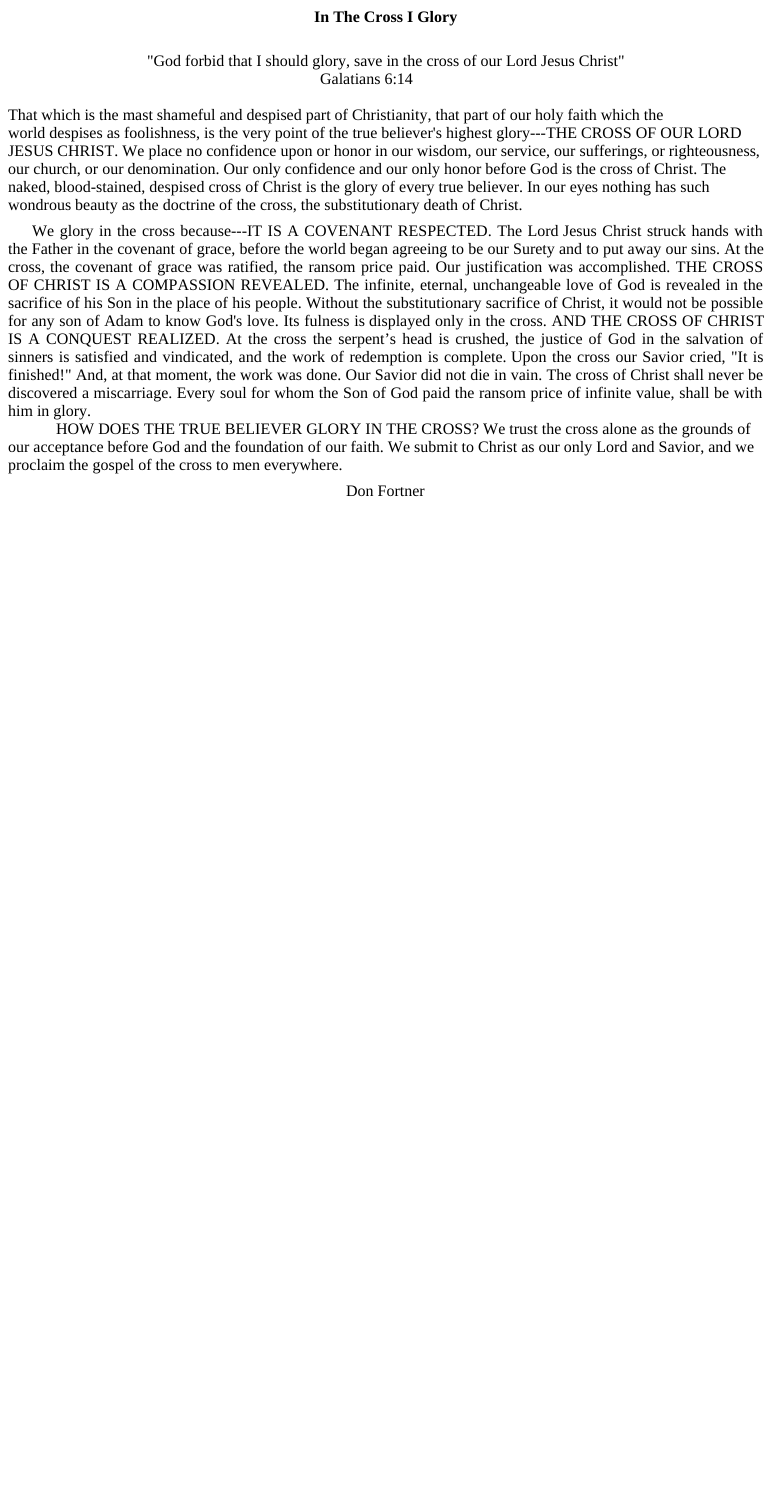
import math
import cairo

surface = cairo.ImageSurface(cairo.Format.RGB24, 771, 1498)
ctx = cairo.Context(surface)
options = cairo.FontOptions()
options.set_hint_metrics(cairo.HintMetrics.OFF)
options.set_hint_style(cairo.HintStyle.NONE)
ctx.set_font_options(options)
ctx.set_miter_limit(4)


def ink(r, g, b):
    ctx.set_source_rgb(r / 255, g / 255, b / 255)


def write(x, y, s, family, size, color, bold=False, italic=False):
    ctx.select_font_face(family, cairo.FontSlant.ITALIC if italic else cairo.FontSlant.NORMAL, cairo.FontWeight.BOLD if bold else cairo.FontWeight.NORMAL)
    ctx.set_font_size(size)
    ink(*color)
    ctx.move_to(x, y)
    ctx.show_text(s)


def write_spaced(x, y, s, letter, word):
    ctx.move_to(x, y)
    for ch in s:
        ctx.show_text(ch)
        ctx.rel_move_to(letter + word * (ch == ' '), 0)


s1 = dict(family="Liberation Serif", size=16, color=(0, 0, 0), bold=True)
s2 = dict(family="Liberation Serif", size=16, color=(0, 0, 0))

ink(255, 255, 255)
ctx.paint()
write(314, 22, "In The Cross I Glory", **s1)
write(147, 66, "\"God forbid that I should glory, save in the cross of our Lord Jesus Christ\"", **s2)
write(320, 84, "Galatians 6:14", **s2)
write(8, 120, "That which is the mast shameful and despised part of Christianity, that part of our holy faith which the", **s2)
write(8, 138, "world despises as foolishness, is the very point of the true believer's highest glory---THE CROSS OF OUR LORD", **s2)
write(8, 156, "JESUS CHRIST. We place no confidence upon or honor in our wisdom, our service, our sufferings, or righteousness,", **s2)
write(8, 174, "our church, or our denomination. Our only confidence and our only honor before God is the cross of Christ. The", **s2)
write(8, 192, "naked, blood-stained, despised cross of Christ is the glory of every true believer. In our eyes nothing has such", **s2)
write(8, 210, "wondrous beauty as the doctrine of the cross, the substitutionary death of Christ.", **s2)
write_spaced(32, 236, "We glory in the cross because---IT IS A COVENANT RESPECTED. The Lord", 0, 1.5)
write_spaced(563, 236, "Jesus Christ struck hands with", 0, 1.5)
write_spaced(8, 254, "the Father in the covenant of grace, before the world began agreeing to be our Surety and to put away our sins. At the", 0, 0.2)
write(8, 272, "cross,", **s2)
write_spaced(50, 272, "the covenant of grace was ratified, the ransom price paid. Our justification", 0, 1.5)
write_spaced(548, 272, "was accomplished. THE CROSS", 0, 1.5)
write_spaced(8, 290, "OF CHRIST IS A COMPASSION REVEALED. The infinite,", 0, 1.25)
write_spaced(420, 290, "eternal, unchangeable love of God is revealed in the", 0, 1.25)
write_spaced(8, 308, "sacrifice of his Son in the place of his people. Without the substitutionary sacrifice of Christ, it would not be possible", 0, 0.25)
write_spaced(8, 326, "for any son of Adam to know God's love. Its fulness is", 0, 0.75)
write_spaced(369, 326, "displayed only in the cross. AND THE CROSS OF CHRIST", 0, 0.75)
write_spaced(8, 344, "IS A CONQUEST REALIZED. At", 0, 2.1)
write_spaced(248, 344, "the cross the serpent’s head is crushed, the justice of God in the salvation of", 0, 2.1)
write_spaced(8, 362, "sinners is satisfied and vindicated, and the work of redemption is complete.", 0, 1.5)
write_spaced(511, 362, "Upon the cross our Savior cried, \"It is", 0, 1.5)
write_spaced(8, 380, "finished!\" And, at that moment, the work was done. Our Savior did not die in vain. The cross of Christ shall never be", 0, 0.25)
write_spaced(8, 398, "discovered a miscarriage. Every", 0, 0.6)
write(220, 398, "soul", **s2)
write_spaced(251, 398, "for whom the Son of God paid the ransom price of infinite value, shall be with", 0, 0.6)
write(8, 416, "him in glory.", **s2)
write(56, 434, "HOW DOES THE TRUE BELIEVER GLORY IN THE CROSS? We trust the cross alone as the grounds of", **s2)
write(8, 452, "our acceptance before God and the foundation of our faith. We submit to Christ as our only Lord and Savior, and we", **s2)
write(8, 470, "proclaim the gospel of the cross to men everywhere.", **s2)
write(346, 496, "Don Fortner", **s2)
surface.write_to_png("screenshot.png")
